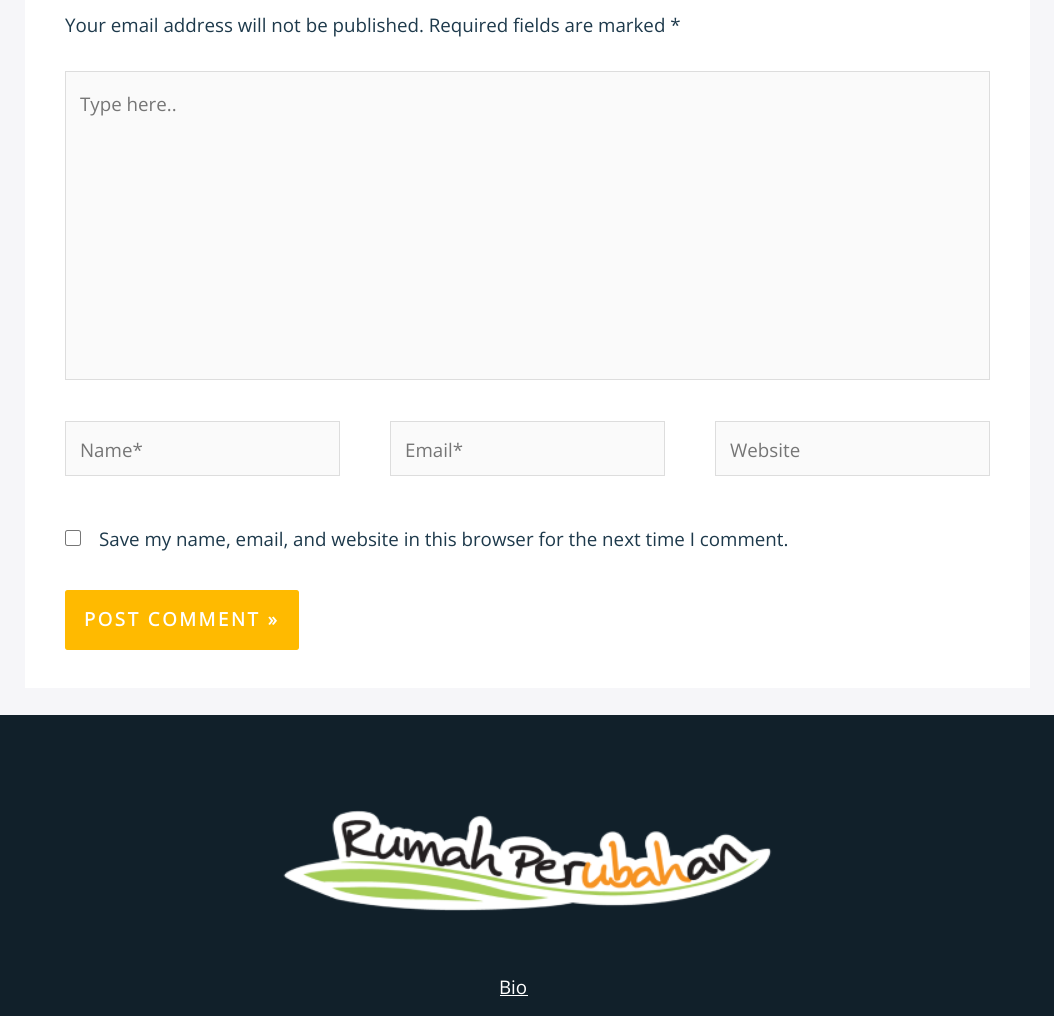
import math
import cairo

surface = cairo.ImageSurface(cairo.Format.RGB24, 1054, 1016)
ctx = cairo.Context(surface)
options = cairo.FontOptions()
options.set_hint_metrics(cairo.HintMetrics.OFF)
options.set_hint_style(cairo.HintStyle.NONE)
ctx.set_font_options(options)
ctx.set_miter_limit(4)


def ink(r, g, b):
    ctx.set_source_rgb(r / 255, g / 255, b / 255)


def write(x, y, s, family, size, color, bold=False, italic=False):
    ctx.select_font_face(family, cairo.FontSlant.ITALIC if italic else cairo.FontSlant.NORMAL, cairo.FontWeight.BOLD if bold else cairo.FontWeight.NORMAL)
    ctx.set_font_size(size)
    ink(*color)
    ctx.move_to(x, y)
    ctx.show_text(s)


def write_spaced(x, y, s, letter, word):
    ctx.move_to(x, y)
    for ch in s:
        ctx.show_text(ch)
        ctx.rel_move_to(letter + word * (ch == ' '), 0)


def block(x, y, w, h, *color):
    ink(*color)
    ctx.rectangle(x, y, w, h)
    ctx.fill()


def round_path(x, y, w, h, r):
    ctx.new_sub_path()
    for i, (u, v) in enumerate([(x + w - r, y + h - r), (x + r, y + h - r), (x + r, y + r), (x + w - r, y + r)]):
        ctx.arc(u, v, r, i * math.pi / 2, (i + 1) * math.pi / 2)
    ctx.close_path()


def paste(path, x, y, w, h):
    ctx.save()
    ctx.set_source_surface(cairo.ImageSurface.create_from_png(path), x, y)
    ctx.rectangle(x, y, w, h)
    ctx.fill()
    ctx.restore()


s1 = dict(family="Open Sans", size=18.75, color=(29, 57, 75))
s2 = dict(family="Open Sans", size=18.75, color=(117, 117, 117))
s3 = dict(family="Open Sans", size=18.75, color=(255, 255, 255))

ink(246, 246, 249)
ctx.paint()
block(25, 0, 1005, 688, 255, 255, 255)
write(65, 32, "Your email address will not be published. Required fields are marked *", **s1)
ink(250, 250, 250)
ctx.rectangle(65.5, 71.5, 924, 308)
ctx.fill_preserve()
ink(221, 221, 221)
ctx.set_line_width(1)
ctx.stroke()
write(80, 111, "Type here..", **s2)
ink(250, 250, 250)
ctx.rectangle(65.5, 421.5, 274, 54)
ctx.fill_preserve()
ink(221, 221, 221)
ctx.stroke()
write(80, 457, "Name*", **s2)
ink(250, 250, 250)
ctx.rectangle(390.5, 421.5, 274, 54)
ctx.fill_preserve()
ink(221, 221, 221)
ctx.stroke()
write(405, 457, "Email*", **s2)
ink(250, 250, 250)
ctx.rectangle(715.5, 421.5, 274, 54)
ctx.fill_preserve()
ink(221, 221, 221)
ctx.stroke()
write(730, 457, "Website", **s2)
round_path(65.5, 530.5, 15, 15, 2)
ink(118, 118, 118)
ctx.stroke()
write(99, 546, "Save my name, email, and website in this browser for the next time I comment.", **s1)
ink(255, 186, 0)
round_path(65, 590, 234, 60, 2.5)
ctx.fill()
ctx.select_font_face("Open Sans", cairo.FontSlant.NORMAL, cairo.FontWeight.BOLD)
ink(255, 255, 255)
write_spaced(84, 626, "POST COMMENT »", 2.5, 0)
block(0, 715, 1054, 301, 17, 32, 42)
paste("pic1.png", 283, 810, 489, 101)
write(499, 994, "Bio", **s3)
block(500, 995, 28, 1, 255, 255, 255)
surface.write_to_png("screenshot.png")
